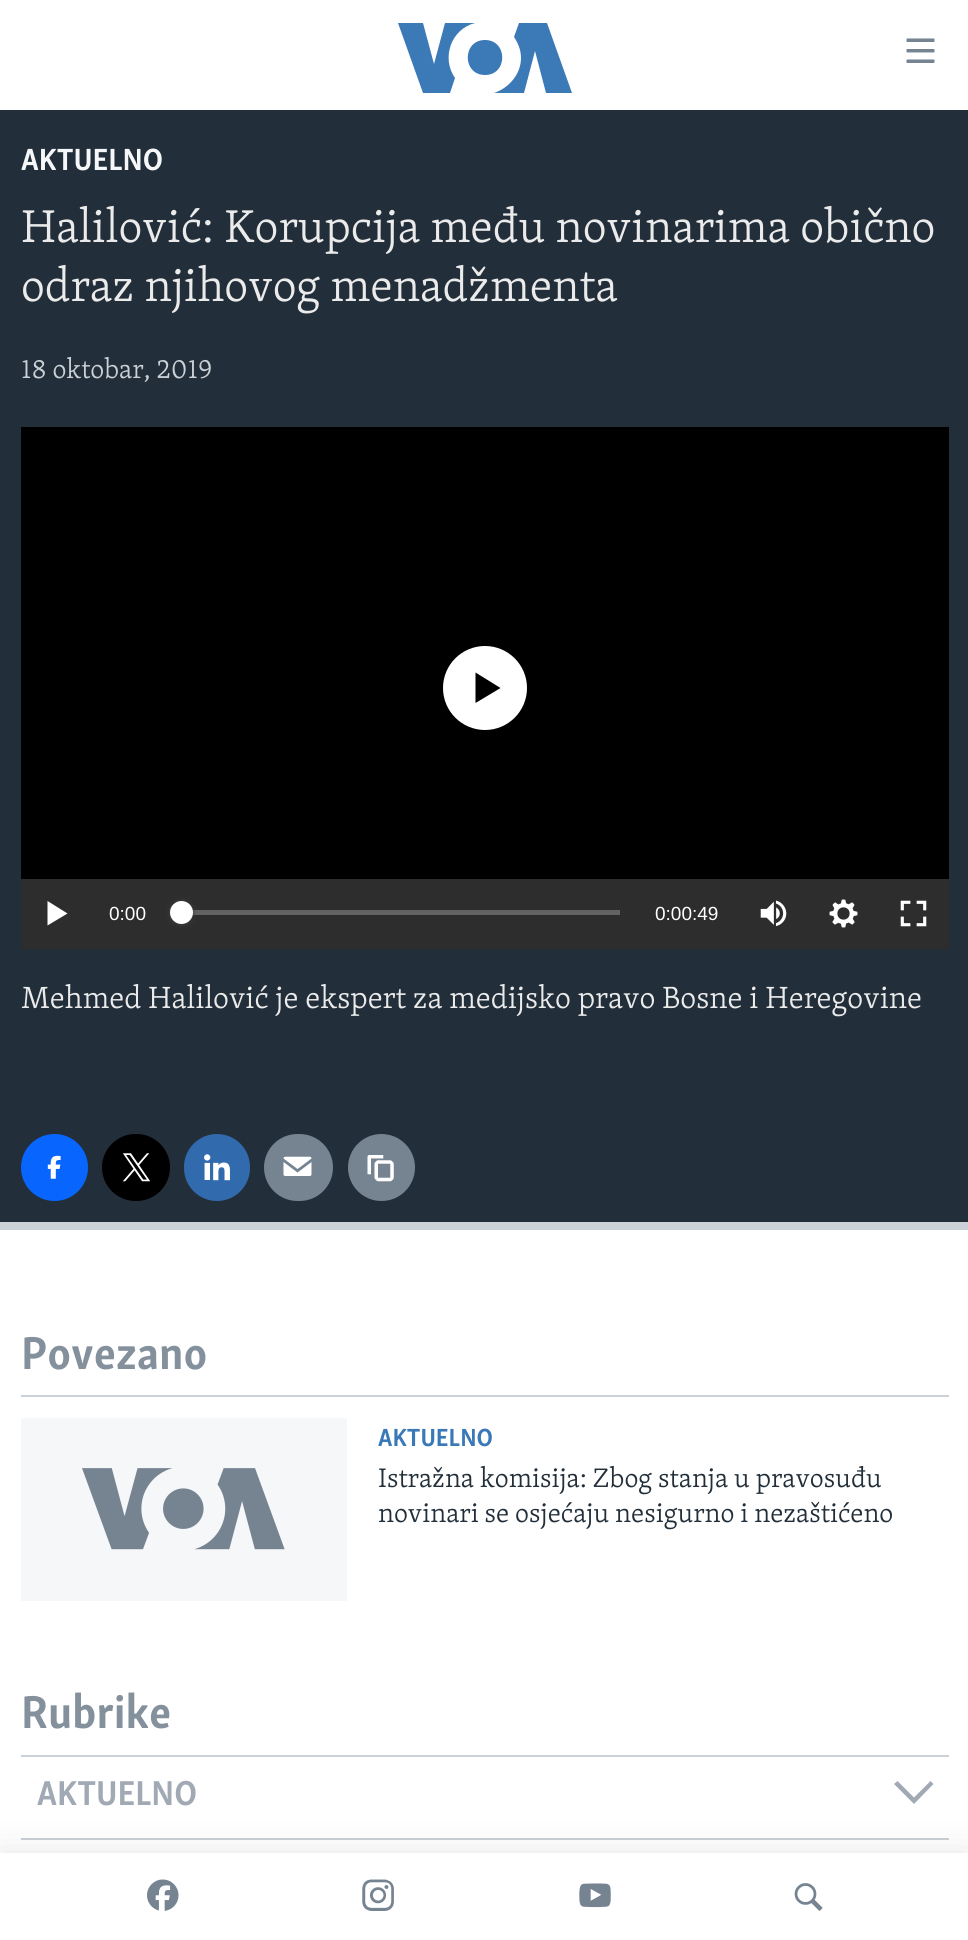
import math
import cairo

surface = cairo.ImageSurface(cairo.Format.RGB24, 968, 1940)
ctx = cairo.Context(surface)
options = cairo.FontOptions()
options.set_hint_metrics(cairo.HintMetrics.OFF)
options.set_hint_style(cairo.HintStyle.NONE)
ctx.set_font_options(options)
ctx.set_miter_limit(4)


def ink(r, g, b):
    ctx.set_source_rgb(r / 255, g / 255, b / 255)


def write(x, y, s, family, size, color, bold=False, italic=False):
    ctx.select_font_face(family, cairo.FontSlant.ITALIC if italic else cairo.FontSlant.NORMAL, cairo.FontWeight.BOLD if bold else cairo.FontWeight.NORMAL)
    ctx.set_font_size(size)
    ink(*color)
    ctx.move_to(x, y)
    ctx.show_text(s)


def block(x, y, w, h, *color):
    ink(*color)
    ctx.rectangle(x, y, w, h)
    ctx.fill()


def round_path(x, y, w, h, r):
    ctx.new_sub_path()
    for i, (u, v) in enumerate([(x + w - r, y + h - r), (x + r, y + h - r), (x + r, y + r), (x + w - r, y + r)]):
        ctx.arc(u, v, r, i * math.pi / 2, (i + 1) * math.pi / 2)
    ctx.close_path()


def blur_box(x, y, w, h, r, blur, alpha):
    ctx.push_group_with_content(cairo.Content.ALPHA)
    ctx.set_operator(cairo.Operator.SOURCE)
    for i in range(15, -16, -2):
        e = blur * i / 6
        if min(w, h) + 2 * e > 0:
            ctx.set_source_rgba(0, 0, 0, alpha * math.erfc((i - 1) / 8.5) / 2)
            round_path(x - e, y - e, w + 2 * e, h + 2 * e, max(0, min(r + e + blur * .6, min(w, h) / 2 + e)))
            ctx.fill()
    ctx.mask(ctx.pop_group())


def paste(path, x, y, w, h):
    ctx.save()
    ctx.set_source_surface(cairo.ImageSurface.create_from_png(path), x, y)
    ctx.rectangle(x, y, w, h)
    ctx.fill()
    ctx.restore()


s1 = dict(family="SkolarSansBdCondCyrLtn", size=31.5, color=(246, 247, 248), bold=True)
s2 = dict(family="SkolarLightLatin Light", size=47.25, color=(235, 235, 235))
s3 = dict(family="SkolarLightLatin Light", size=27.6, color=(203, 209, 214))
s4 = dict(family="Liberation Sans", size=19, color=(255, 255, 255))
s5 = dict(family="SkolarLightLatin Light", size=31.5, color=(235, 235, 235))
s6 = dict(family="SkolarSansBdCondCyrLtn", size=47.25, color=(132, 145, 157), bold=True)
s7 = dict(family="SkolarSansBdCondCyrLtn", size=25.5, color=(58, 121, 183), bold=True)
s8 = dict(family="SkolarLightLatin Light", size=27.6, color=(34, 47, 58))
s9 = dict(family="SkolarSansBdCondCyrLtn", size=35.5, color=(161, 170, 180), bold=True)

ink(255, 255, 255)
ctx.paint()
ink(59, 121, 183)
ctx.new_path()
ctx.move_to(455, 78)
ctx.line_to(450, 93)
ctx.line_to(423, 93)
ctx.line_to(398, 23)
ctx.line_to(423, 23)
ctx.line_to(434, 64)
ctx.line_to(445, 23)
ctx.line_to(475, 23)
ctx.curve_to(451, 29, 441, 58, 455, 78)
ctx.close_path()
ctx.move_to(485, 40)
ctx.curve_to(462, 40, 462, 75, 485, 75)
ctx.curve_to(508, 75, 508, 40, 485, 40)
ctx.close_path()
ctx.move_to(521, 58)
ctx.curve_to(521, 74, 509, 88, 494, 93)
ctx.line_to(524, 93)
ctx.line_to(535, 51)
ctx.line_to(546, 93)
ctx.line_to(572, 93)
ctx.line_to(547, 23)
ctx.line_to(519, 23)
ctx.line_to(514, 37)
ctx.curve_to(518, 43, 521, 50, 521, 58)
ctx.close_path()
ctx.fill()
paste("pic1.png", 906, 38, 29, 25)
block(21, 1838, 928, 2, 203, 209, 214)
ink(161, 170, 180)
ctx.new_path()
ctx.move_to(894, 1784)
ctx.line_to(914, 1804)
ctx.line_to(933.5, 1784)
ctx.line_to(930.5, 1781)
ctx.line_to(914, 1797.5)
ctx.line_to(897.5, 1781)
ctx.close_path()
ctx.fill()
ink(0, 0, 0)
blur_box(0, 1853, 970, 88, 0, 17.5, 0.1)
block(0, 1853, 968, 87, 255, 255, 255)
paste("pic2.png", 147, 1879, 32, 32)
paste("pic3.png", 362, 1879, 32, 32)
paste("pic4.png", 579, 1883, 32, 25)
paste("pic5.png", 794, 1883, 29, 28)
block(0, 110, 968, 1112, 34, 47, 58)
block(0, 1222, 968, 8, 203, 209, 214)
write(21, 170, "AKTUELNO", **s1)
write(21, 242, "Halilović: Korupcija među novinarima obično", **s2)
write(21, 301, "odraz njihovog menadžmenta", **s2)
write(21, 378, "18 oktobar, 2019", **s3)
block(21, 427, 928, 452, 0, 0, 0)
ink(255, 255, 255)
ctx.new_path()
ctx.arc(485, 688, 42, 0, 2 * math.pi)
ctx.fill()
ink(0, 0, 0)
ctx.new_path()
ctx.move_to(475.5, 703)
ctx.line_to(500.5, 688)
ctx.line_to(475.5, 672.5)
ctx.close_path()
ctx.fill()
block(21, 879, 928, 70, 45, 45, 45)
ink(255, 255, 255)
ctx.new_path()
ctx.move_to(47.5, 925.5)
ctx.line_to(67.5, 913.5)
ctx.line_to(47.5, 901)
ctx.close_path()
ctx.fill()
write(109, 920, "0:00", **s4)
block(192, 910, 428, 5, 98, 98, 98)
ink(65, 65, 68)
blur_box(170, 901, 23, 23, 11.5, 2.5, 1)
ink(255, 255, 255)
ctx.arc(181.5, 912.5, 11.5, 0, 2 * math.pi)
ctx.fill()
write(655, 920, "0:00:49", **s4)
paste("pic6.png", 760, 900, 27, 26)
paste("pic7.png", 829, 899, 29, 29)
paste("pic8.png", 900, 900, 27, 27)
write(21, 1008, "Mehmed Halilović je ekspert za medijsko pravo Bosne i Heregovine", **s5)
ink(8, 102, 255)
ctx.new_path()
ctx.arc(54.5, 1167.5, 33.5, 0, 2 * math.pi)
ctx.fill()
paste("pic9.png", 47, 1155, 14, 24)
ink(0, 0, 0)
round_path(102, 1134, 68, 67, 33.5)
ctx.fill()
paste("pic10.png", 122, 1153, 29, 29)
ink(49, 107, 174)
round_path(184, 1134, 66, 67, 33)
ctx.fill()
paste("pic11.png", 204, 1154, 26, 27)
ink(118, 132, 146)
round_path(264, 1134, 69, 67, 33.5)
ctx.fill()
paste("pic12.png", 283, 1156, 29, 20)
ctx.arc(381.5, 1167.5, 33.5, 0, 2 * math.pi)
ctx.fill()
paste("pic13.png", 367, 1155, 27, 27)
block(21, 1395, 928, 2, 203, 209, 214)
write(21, 1369, "Povezano", **s6)
block(21, 1418, 326, 183, 246, 247, 248)
paste("pic14.png", 82, 1468, 203, 82)
write(378, 1446, "AKTUELNO", **s7)
write(378, 1487, "Istražna komisija: Zbog stanja u pravosuđu", **s8)
write(378, 1522, "novinari se osjećaju nesigurno i nezaštićeno", **s8)
block(21, 1755, 928, 2, 203, 209, 214)
write(21, 1728, "Rubrike", **s6)
write(37, 1805, "AKTUELNO", **s9)
surface.write_to_png("screenshot.png")
